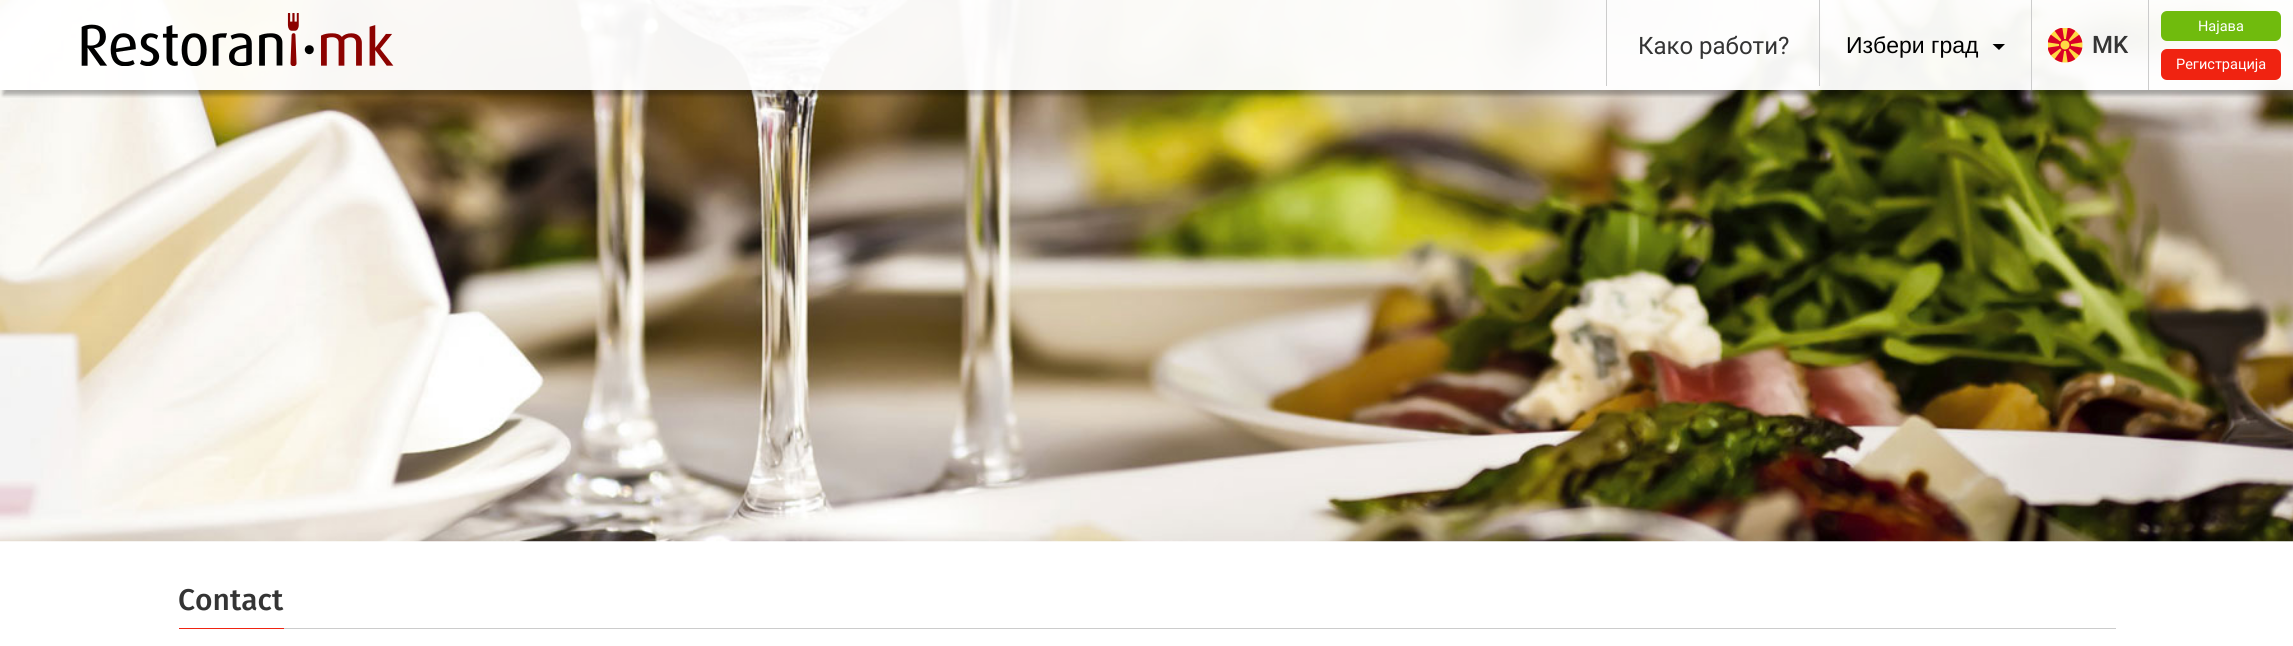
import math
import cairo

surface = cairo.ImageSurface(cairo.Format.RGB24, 2293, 646)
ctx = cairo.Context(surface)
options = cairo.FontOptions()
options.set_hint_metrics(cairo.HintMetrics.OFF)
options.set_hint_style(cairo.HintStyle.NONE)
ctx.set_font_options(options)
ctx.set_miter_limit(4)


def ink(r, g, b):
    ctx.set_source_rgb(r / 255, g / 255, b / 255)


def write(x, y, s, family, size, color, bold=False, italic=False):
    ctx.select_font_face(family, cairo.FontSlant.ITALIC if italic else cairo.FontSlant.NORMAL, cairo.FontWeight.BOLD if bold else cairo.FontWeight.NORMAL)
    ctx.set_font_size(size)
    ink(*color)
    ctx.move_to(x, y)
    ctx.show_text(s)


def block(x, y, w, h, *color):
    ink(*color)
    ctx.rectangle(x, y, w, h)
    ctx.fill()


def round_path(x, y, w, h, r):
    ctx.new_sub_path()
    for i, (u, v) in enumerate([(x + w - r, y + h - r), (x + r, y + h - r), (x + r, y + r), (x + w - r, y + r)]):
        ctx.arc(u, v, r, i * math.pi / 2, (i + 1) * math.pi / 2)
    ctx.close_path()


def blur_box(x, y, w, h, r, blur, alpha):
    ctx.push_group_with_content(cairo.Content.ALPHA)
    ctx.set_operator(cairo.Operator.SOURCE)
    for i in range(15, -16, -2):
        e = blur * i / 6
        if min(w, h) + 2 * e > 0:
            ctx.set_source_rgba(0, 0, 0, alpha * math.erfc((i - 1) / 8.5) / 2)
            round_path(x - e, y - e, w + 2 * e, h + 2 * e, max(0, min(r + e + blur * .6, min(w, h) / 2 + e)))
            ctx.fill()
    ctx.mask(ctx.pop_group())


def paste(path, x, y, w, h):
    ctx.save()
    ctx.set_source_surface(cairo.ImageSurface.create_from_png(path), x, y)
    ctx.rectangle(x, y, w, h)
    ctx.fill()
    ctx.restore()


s1 = dict(family="Roboto", size=24, color=(52, 52, 52))
s2 = dict(family="Liberation Sans", size=23, color=(0, 0, 0))
s3 = dict(family="Roboto Medium", size=24, color=(52, 52, 52))
s4 = dict(family="Roboto", size=14.5, color=(255, 255, 255))
s5 = dict(family="Fira Sans Medium", size=30, color=(52, 52, 52))

ink(255, 255, 255)
ctx.paint()
paste("pic3.png", 0, 0, 2293, 542)
ctx.save()
ctx.rectangle(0, 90, 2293, 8)
ctx.clip()
ink(0, 0, 0)
blur_box(3, 5, 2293, 90, 0, 2, 0.3)
ctx.restore()
ctx.set_source_rgba(1, 1, 1, 0.95)
ctx.rectangle(0, 0, 2293, 90)
ctx.fill()
paste("pic1.png", 81, 13, 313, 53)
block(1819, 0, 1, 86, 204, 204, 204)
block(1606, 0, 1, 86, 204, 204, 204)
write(1638, 54, "Како работи?", **s1)
write(1846, 53, "Избери град", **s2)
ctx.new_path()
ctx.move_to(1992.5, 44)
ctx.line_to(2005, 44)
ctx.line_to(1999, 50)
ctx.close_path()
ctx.fill()
block(2031, 0, 1, 90, 204, 204, 204)
paste("pic2.png", 2048, 28, 35, 35)
block(2148, 0, 1, 90, 204, 204, 204)
write(2092, 53, "MK", **s3)
ink(112, 187, 13)
round_path(2161, 11, 120, 30, 6)
ctx.fill()
write(2198, 31, "Најава", **s4)
ink(240, 35, 17)
round_path(2161, 49, 120, 31, 6)
ctx.fill()
write(2176, 69, "Регистрација", **s4)
block(284, 628, 1832, 1, 204, 204, 204)
block(179, 628, 105, 1, 240, 35, 17)
write(178, 610, "Contact", **s5)
surface.write_to_png("screenshot.png")
